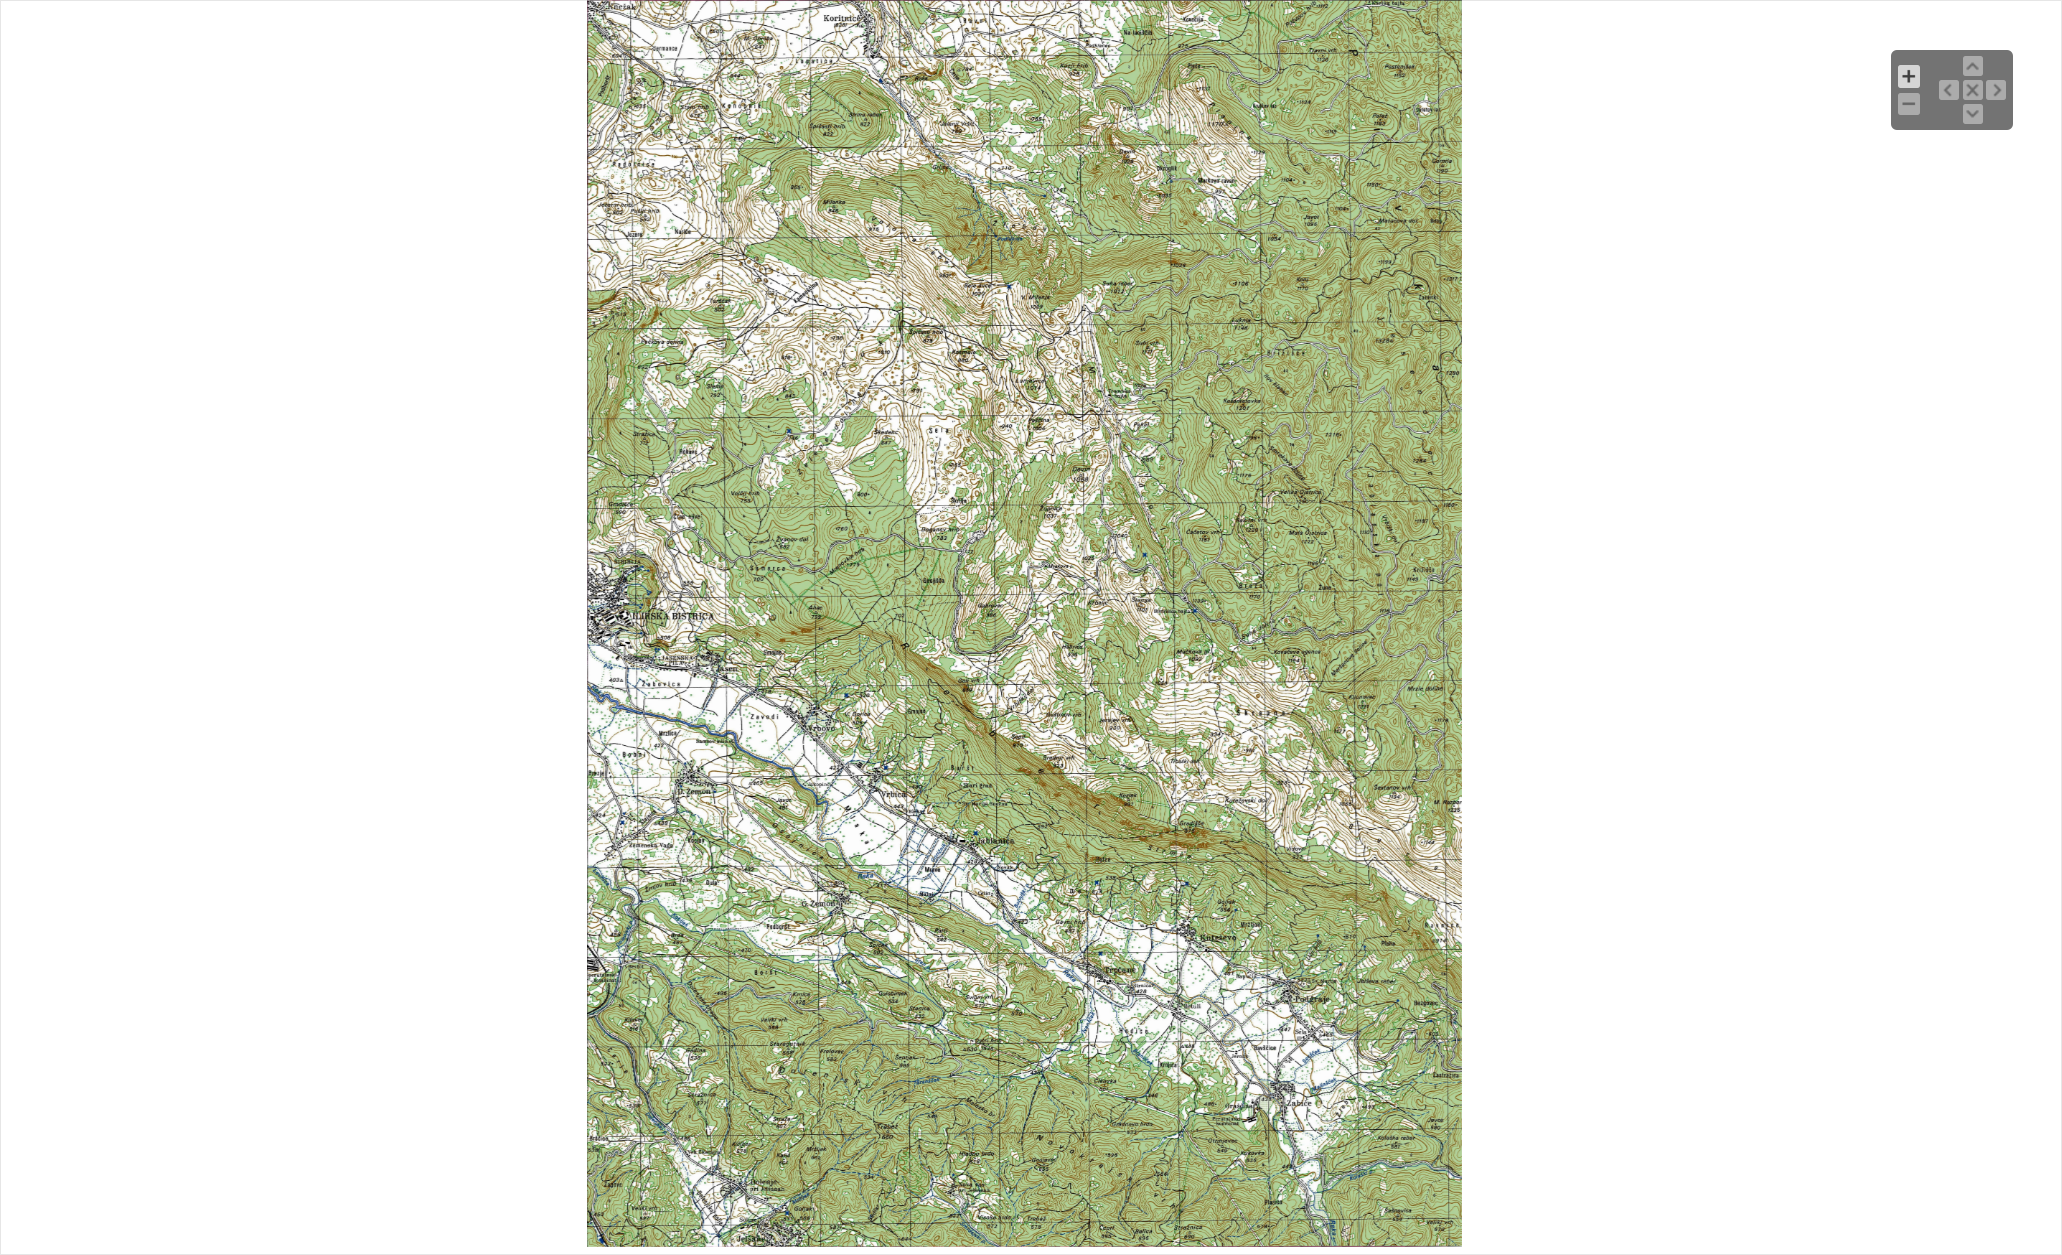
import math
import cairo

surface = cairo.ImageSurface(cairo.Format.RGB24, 2062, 1255)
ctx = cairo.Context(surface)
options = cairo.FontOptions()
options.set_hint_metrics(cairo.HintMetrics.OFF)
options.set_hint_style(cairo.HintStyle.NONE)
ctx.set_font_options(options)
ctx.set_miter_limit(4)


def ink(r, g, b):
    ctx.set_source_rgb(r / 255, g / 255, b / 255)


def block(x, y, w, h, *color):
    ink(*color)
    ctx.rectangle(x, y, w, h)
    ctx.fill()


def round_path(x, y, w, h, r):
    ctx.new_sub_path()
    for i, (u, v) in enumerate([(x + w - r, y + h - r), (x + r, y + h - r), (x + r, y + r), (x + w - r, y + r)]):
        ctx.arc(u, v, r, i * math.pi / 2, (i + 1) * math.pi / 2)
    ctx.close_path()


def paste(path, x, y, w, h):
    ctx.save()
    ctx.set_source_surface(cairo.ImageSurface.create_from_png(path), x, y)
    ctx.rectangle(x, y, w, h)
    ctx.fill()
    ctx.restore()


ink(255, 255, 255)
ctx.paint()
block(0, 0, 1, 1255, 230, 230, 230)
paste("pic1.png", 587, 0, 875, 1247)
ctx.set_source_rgba(0, 0, 0, 0.1)
ctx.rectangle(1, 0, 2060, 1)
ctx.fill()
ink(115, 115, 115)
round_path(1891, 50, 122, 80, 6)
ctx.fill()
ink(213, 213, 213)
round_path(1898, 65, 22, 23, 2.5)
ctx.fill()
paste("pic2.png", 1902, 69, 14, 14)
ink(171, 171, 171)
round_path(1963, 56, 20, 20, 2.5)
ctx.fill()
paste("pic3.png", 1966, 62, 13, 9)
round_path(1939, 80, 20, 20, 2.5)
ctx.fill()
paste("pic4.png", 1943, 83, 9, 14)
round_path(1963, 80, 20, 20, 2.5)
ctx.fill()
paste("pic5.png", 1966, 83, 13, 14)
round_path(1986, 80, 20, 20, 2.5)
ctx.fill()
paste("pic6.png", 1993, 83, 9, 14)
round_path(1898, 93, 22, 22, 2.5)
ctx.fill()
paste("pic7.png", 1902, 102, 14, 4)
round_path(1963, 104, 20, 20, 2.5)
ctx.fill()
paste("pic8.png", 1966, 110, 13, 8)
block(2061, 0, 1, 1255, 230, 230, 230)
block(1, 1254, 2060, 1, 230, 230, 230)
surface.write_to_png("screenshot.png")
